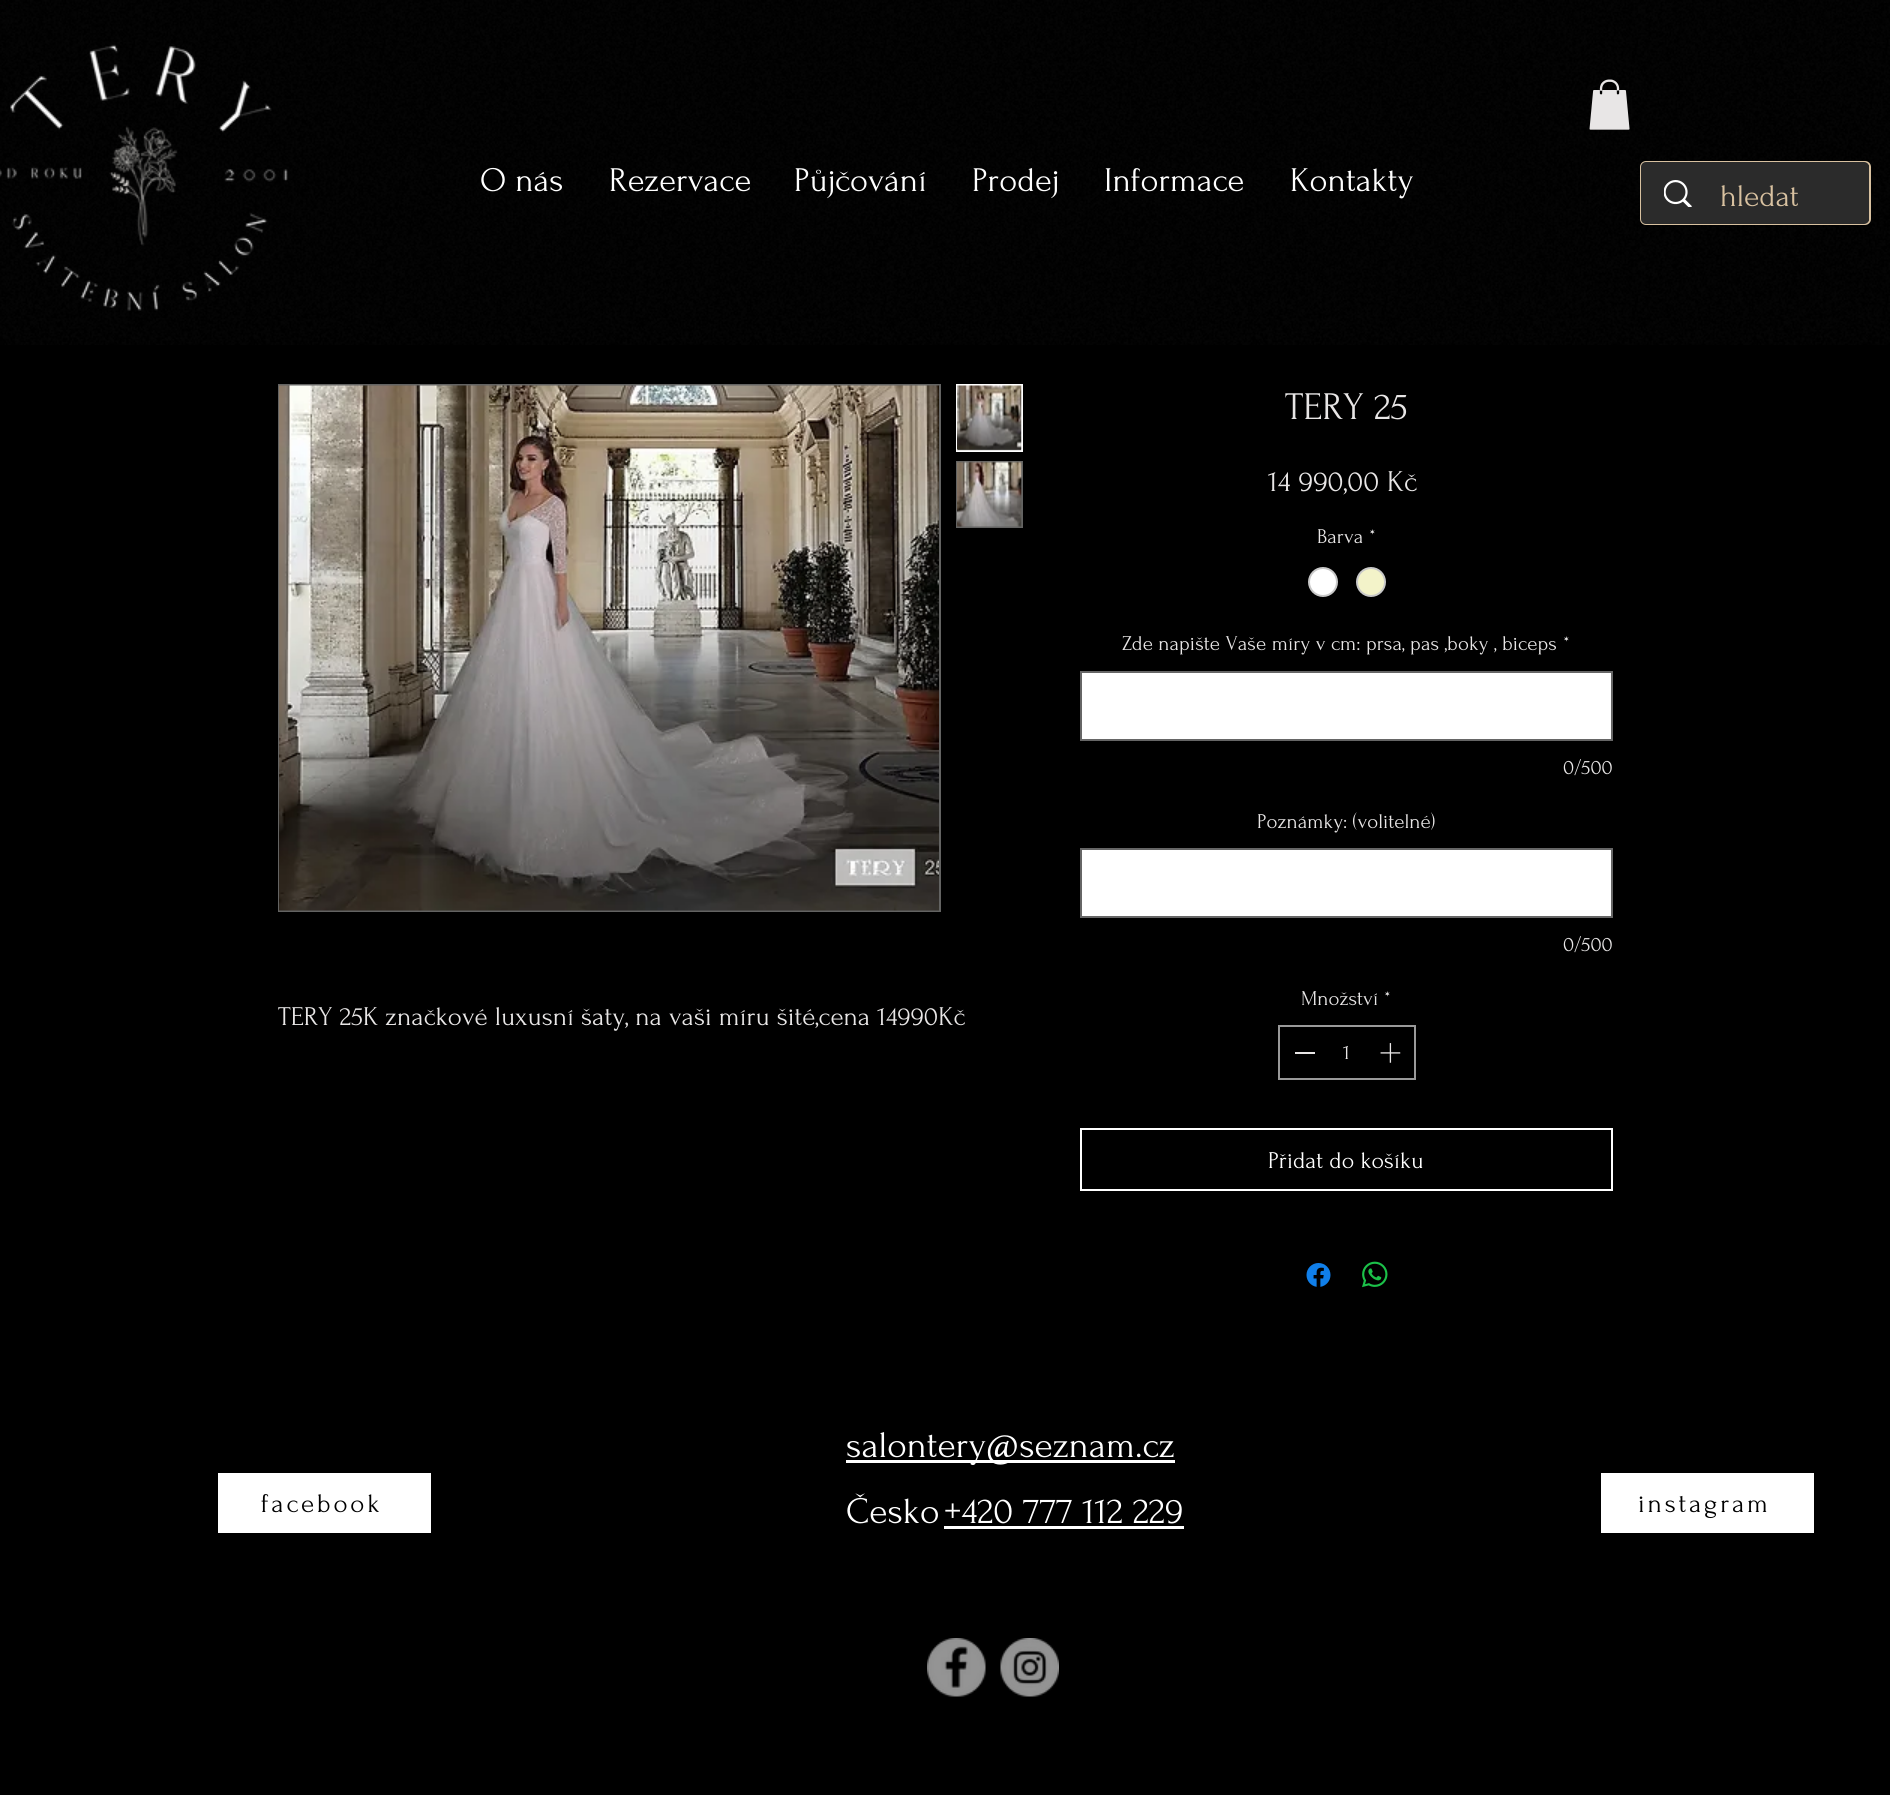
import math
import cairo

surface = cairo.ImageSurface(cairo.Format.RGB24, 1890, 1795)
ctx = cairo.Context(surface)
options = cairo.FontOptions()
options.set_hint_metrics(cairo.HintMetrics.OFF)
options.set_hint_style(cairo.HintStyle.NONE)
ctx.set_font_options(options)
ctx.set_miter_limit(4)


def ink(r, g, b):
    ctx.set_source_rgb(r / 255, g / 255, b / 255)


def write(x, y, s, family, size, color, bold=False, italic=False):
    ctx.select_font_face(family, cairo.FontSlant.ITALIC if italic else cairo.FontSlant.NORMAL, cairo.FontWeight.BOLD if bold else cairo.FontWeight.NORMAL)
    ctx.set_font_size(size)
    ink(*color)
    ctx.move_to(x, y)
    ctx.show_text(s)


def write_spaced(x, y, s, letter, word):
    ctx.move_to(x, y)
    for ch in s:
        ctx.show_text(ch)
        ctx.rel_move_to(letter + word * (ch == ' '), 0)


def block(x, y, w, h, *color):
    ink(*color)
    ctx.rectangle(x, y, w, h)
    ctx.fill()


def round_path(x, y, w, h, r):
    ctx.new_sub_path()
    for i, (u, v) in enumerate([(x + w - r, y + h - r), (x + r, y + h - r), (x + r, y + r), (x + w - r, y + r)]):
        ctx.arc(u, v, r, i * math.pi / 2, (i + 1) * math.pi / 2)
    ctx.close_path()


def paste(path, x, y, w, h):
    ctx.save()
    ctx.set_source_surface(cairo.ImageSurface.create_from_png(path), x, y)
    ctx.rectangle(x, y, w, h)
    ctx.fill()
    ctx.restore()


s1 = dict(family="Forum", size=34.5, color=(255, 255, 255))
s2 = dict(family="Forum", size=31.5, color=(216, 193, 160))
s3 = dict(family="Forum", size=27, color=(232, 230, 230))
s4 = dict(family="Forum", size=39, color=(232, 230, 230))
s5 = dict(family="Forum", size=30, color=(232, 230, 230))
s6 = dict(family="Forum", size=21, color=(232, 230, 230))
s7 = dict(family="Forum", size=24, color=(255, 255, 255))
s8 = dict(family="Forum", size=37.5, color=(255, 255, 255))

ink(0, 0, 0)
ctx.paint()
paste("pic1.png", 0, 0, 1890, 345)
paste("pic2.png", 0, 44, 288, 267)
paste("pic3.png", 1589, 79, 41, 51)
write(480, 191, "O nás", **s1)
write(609, 191, "Rezervace", **s1)
write(794, 191, "Půjčování", **s1)
write(972, 191, "Prodej", **s1)
write(1104, 191, "Informace", **s1)
write(1290, 191, "Kontakty", **s1)
round_path(1641, 162, 229, 62, 5)
ink(216, 193, 160)
ctx.stroke()
ink(43, 43, 43)
round_path(1641, 162, 228, 62, 5)
ctx.fill()
paste("pic4.png", 1664, 180, 28, 27)
write(1720, 206, "hledat", **s2)
ctx.rectangle(279, 385, 661, 526)
ink(99, 99, 98)
ctx.stroke()
paste("pic5.png", 279, 385, 660, 526)
block(958, 449, 63, 1, 99, 99, 98)
ctx.rectangle(957, 385, 65, 66)
ink(255, 255, 255)
ctx.stroke()
paste("pic6.png", 957, 385, 65, 66)
block(956, 461, 67, 67, 99, 99, 98)
paste("pic7.png", 957, 461, 65, 66)
ctx.save()
ctx.rectangle(278, 999, 687, 36)
ctx.clip()
write(278, 1025, "TERY 25K značkové luxusní šaty, na vaši míru šité,cena 14990Kč", **s3)
ctx.restore()
write(1285, 419, "TERY 25", **s4)
write(1268, 491, "14 990,00 Kč", **s5)
write(1317, 543, "Barva", **s6)
write(1369, 543, "*", **s6)
ink(255, 255, 255)
ctx.new_path()
ctx.arc(1323, 582, 14, 0, 2 * math.pi)
ctx.fill_preserve()
ink(201, 201, 201)
ctx.stroke()
ink(243, 243, 201)
ctx.arc(1371, 582, 14, 0, 2 * math.pi)
ctx.fill_preserve()
ink(201, 201, 201)
ctx.stroke()
write(1122, 650, "Zde napište Vaše míry v cm: prsa, pas ,boky , biceps", **s6)
write(1563, 650, "*", **s6)
ink(255, 255, 255)
ctx.rectangle(1081, 672, 531, 68)
ctx.fill_preserve()
ink(102, 102, 102)
ctx.stroke()
write(1563, 774, "0/500", **s6)
write(1257, 828, "Poznámky: (volitelné)", **s6)
ink(255, 255, 255)
ctx.rectangle(1081, 849, 531, 68)
ctx.fill_preserve()
ink(102, 102, 102)
ctx.stroke()
write(1563, 951, "0/500", **s6)
write(1301, 1005, "Množství", **s6)
write(1384, 1005, "*", **s6)
ctx.rectangle(1279, 1026, 136, 53)
ink(153, 153, 153)
ctx.stroke()
block(1295, 1052, 20, 2, 232, 230, 230)
write(1343, 1059, "1", **s6)
paste("pic8.png", 1380, 1043, 21, 20)
ctx.rectangle(1081, 1129, 531, 61)
ink(255, 255, 255)
ctx.stroke()
write(1268, 1168, "Přidat do košíku", **s7)
paste("pic9.png", 1306, 1263, 25, 24)
paste("pic10.png", 1362, 1261, 26, 27)
block(846, 1460, 329, 3, 255, 255, 255)
write(846, 1457, "salontery@seznam.cz", **s8)
block(218, 1473, 213, 60, 255, 255, 255)
ctx.set_font_size(27)
ink(0, 0, 0)
write_spaced(261, 1512, "facebook", 2.75, 0)
write(846, 1523, "Česko", **s8)
write(944, 1523, "+420 777 112 229", **s8)
block(944, 1526, 240, 3, 255, 255, 255)
block(1601, 1473, 213, 60, 255, 255, 255)
ctx.set_font_size(27)
ink(0, 0, 0)
write_spaced(1638, 1512, "instagram", 2.75, 0)
paste("pic11.png", 927, 1638, 59, 59)
paste("pic12.png", 1000, 1638, 59, 59)
surface.write_to_png("screenshot.png")
